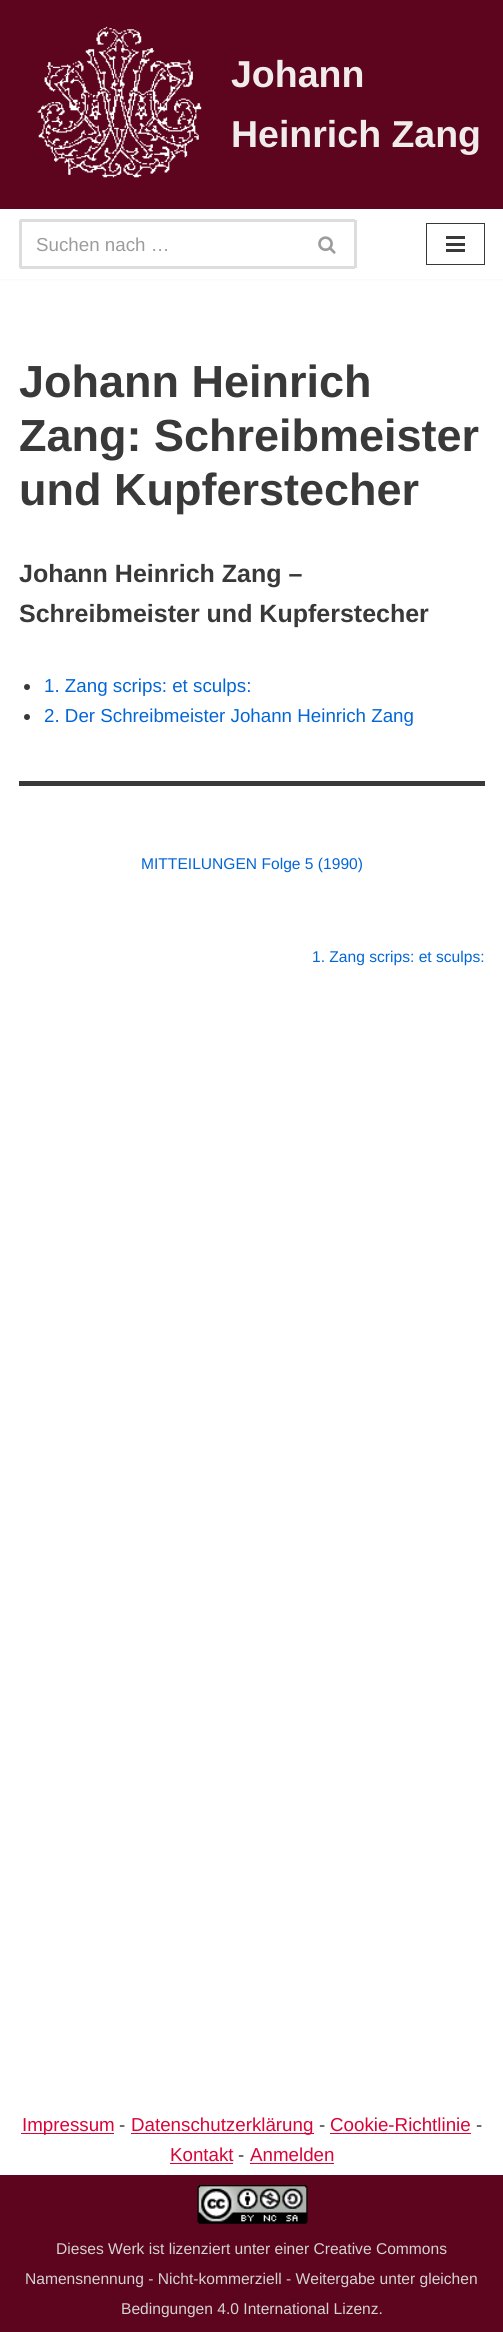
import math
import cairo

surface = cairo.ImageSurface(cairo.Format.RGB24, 503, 2332)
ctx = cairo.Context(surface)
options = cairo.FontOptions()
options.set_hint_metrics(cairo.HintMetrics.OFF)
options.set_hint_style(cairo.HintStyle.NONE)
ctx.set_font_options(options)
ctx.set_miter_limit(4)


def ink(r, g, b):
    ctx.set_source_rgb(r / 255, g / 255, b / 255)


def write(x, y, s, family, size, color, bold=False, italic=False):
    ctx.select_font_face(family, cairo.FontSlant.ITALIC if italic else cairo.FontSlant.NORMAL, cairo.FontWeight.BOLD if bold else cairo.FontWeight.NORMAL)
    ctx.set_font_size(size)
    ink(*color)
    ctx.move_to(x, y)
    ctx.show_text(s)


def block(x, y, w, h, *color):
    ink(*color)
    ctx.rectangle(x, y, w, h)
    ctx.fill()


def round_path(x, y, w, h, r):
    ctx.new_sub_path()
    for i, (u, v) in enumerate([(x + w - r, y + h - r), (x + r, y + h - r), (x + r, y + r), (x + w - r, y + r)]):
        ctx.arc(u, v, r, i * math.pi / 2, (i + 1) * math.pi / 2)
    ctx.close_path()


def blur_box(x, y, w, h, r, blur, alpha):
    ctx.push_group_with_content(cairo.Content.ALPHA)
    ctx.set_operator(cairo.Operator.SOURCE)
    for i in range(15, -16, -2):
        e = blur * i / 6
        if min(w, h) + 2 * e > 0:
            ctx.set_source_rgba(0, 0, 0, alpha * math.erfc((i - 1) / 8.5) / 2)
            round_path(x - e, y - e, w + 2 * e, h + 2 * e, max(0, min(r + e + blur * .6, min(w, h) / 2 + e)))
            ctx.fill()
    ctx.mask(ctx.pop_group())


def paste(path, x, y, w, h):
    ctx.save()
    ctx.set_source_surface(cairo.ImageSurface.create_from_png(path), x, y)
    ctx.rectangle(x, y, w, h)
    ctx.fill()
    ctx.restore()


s1 = dict(family="Liberation Sans", size=37.5, color=(240, 236, 236), bold=True)
s2 = dict(family="Liberation Sans", size=18.75, color=(156, 156, 156))
s3 = dict(family="Liberation Sans", size=45, color=(57, 57, 57), bold=True)
s4 = dict(family="Liberation Sans", size=25, color=(57, 57, 57), bold=True)
s5 = dict(family="Liberation Sans", size=18.75, color=(3, 102, 214))
s6 = dict(family="Liberation Sans", size=15.6, color=(3, 102, 214))
s7 = dict(family="Liberation Sans", size=18.75, color=(216, 3, 57))
s8 = dict(family="Liberation Sans", size=18.75, color=(57, 57, 57))
s9 = dict(family="Liberation Sans", size=15.6, color=(211, 211, 211))

ink(255, 255, 255)
ctx.paint()
ink(0, 0, 0)
blur_box(0, -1, 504, 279, 0, 2, 0.1)
block(0, 0, 503, 209, 93, 5, 31)
paste("pic1.png", 37, 26, 165, 152)
write(231, 87, "Johann", **s1)
write(231, 147, "Heinrich Zang", **s1)
block(0, 209, 503, 70, 255, 255, 255)
block(20, 219, 335, 3, 221, 221, 221)
block(20, 266, 280, 3, 221, 221, 221)
block(19, 220, 3, 48, 221, 221, 221)
write(36, 251, "Suchen nach …", **s2)
block(354, 220, 3, 48, 221, 221, 221)
block(300, 266, 55, 3, 221, 221, 221)
paste("pic2.png", 318, 236, 18, 18)
ctx.rectangle(426.5, 223.5, 58, 41)
ink(57, 57, 57)
ctx.set_line_width(1)
ctx.stroke()
block(446, 236, 19, 3, 57, 57, 57)
block(446, 243, 19, 3, 57, 57, 57)
block(446, 249, 19, 3, 57, 57, 57)
write(19, 397, "Johann Heinrich", **s3)
write(19, 451, "Zang: Schreibmeister", **s3)
write(19, 505, "und Kupferstecher", **s3)
write(19, 582, "Johann Heinrich Zang –", **s4)
write(19, 622, "Schreibmeister und Kupferstecher", **s4)
ctx.new_path()
ctx.arc(27, 687, 3, 0, 2 * math.pi)
ctx.fill()
write(44, 692, "1. Zang scrips: et sculps:", **s5)
ink(57, 57, 57)
ctx.new_path()
ctx.arc(27, 717, 3, 0, 2 * math.pi)
ctx.fill()
write(44, 722, "2. Der Schreibmeister Johann Heinrich Zang", **s5)
block(19, 781, 466, 5, 57, 57, 57)
write(141, 869, "MITTEILUNGEN Folge 5 (1990)", **s6)
write(312, 962, "1. Zang scrips: et sculps:", **s6)
block(21, 2133, 93, 1, 216, 3, 57)
write(22, 2131, "Impressum", **s7)
write(119, 2131, "-", **s8)
block(131, 2133, 183, 1, 216, 3, 57)
write(131, 2131, "Datenschutzerklärung", **s7)
write(319, 2131, "-", **s8)
write(330, 2131, "Cookie-Richtlinie", **s7)
block(330, 2133, 141, 1, 216, 3, 57)
write(476, 2131, "-", **s8)
write(170, 2161, "Kontakt", **s7)
block(170, 2163, 63, 1, 216, 3, 57)
write(238, 2161, "-", **s8)
write(250, 2161, "Anmelden", **s7)
block(250, 2163, 84, 1, 216, 3, 57)
block(0, 2175, 503, 157, 93, 5, 31)
paste("pic3.png", 197, 2185, 111, 39)
write(56, 2254, "Dieses Werk ist lizenziert unter einer Creative Commons", **s9)
write(25, 2284, "Namensnennung - Nicht-kommerziell - Weitergabe unter gleichen", **s9)
write(121, 2314, "Bedingungen 4.0 International Lizenz.", **s9)
surface.write_to_png("screenshot.png")
